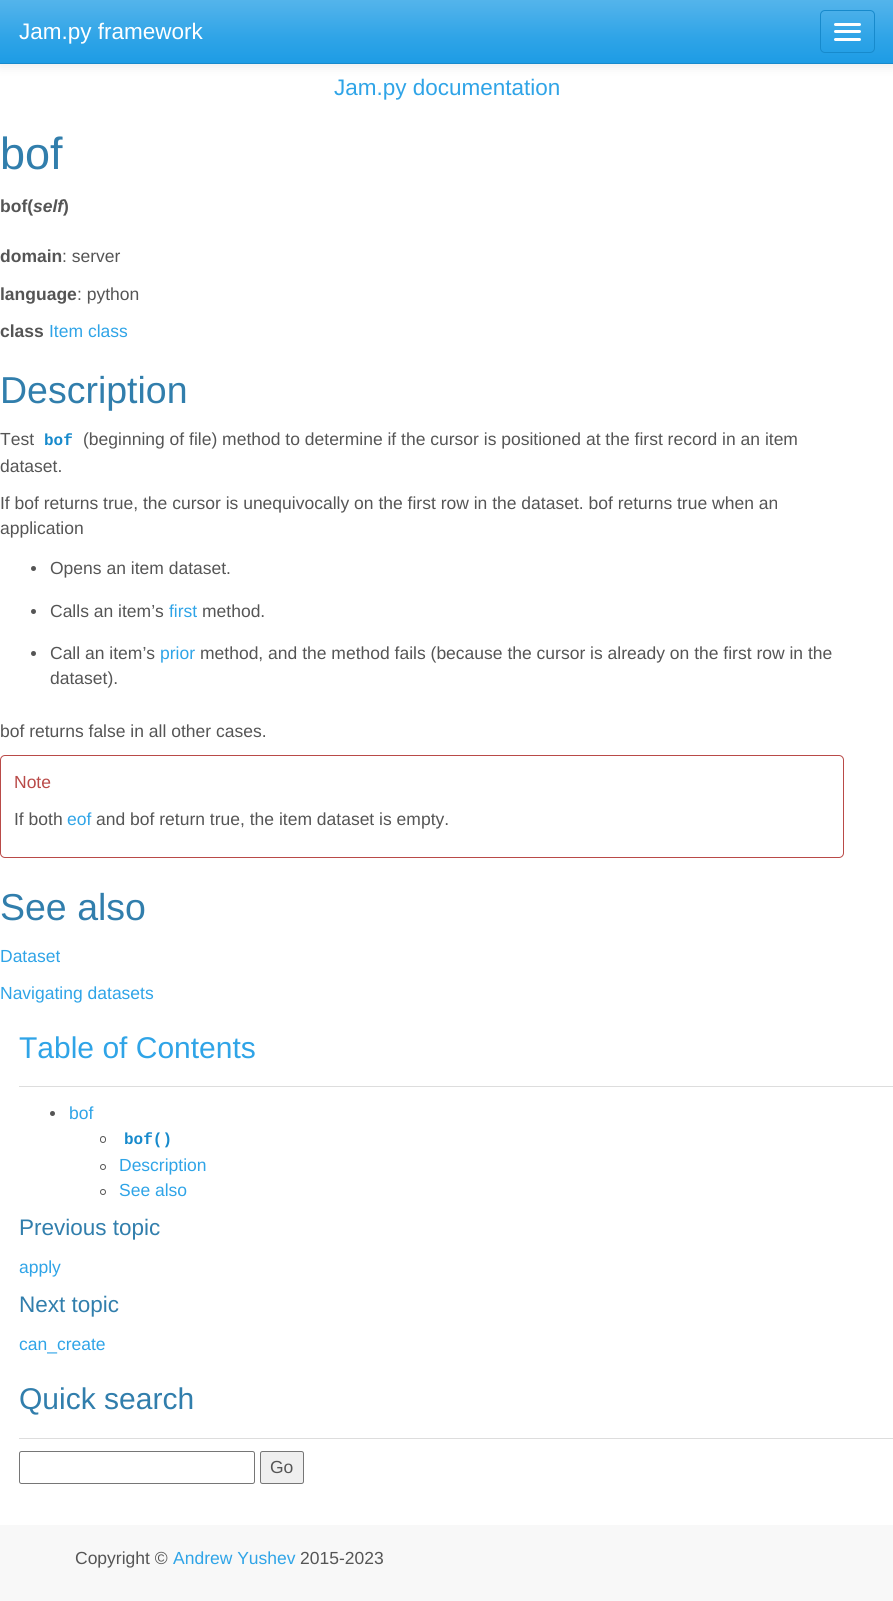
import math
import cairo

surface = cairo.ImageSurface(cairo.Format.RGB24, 893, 1601)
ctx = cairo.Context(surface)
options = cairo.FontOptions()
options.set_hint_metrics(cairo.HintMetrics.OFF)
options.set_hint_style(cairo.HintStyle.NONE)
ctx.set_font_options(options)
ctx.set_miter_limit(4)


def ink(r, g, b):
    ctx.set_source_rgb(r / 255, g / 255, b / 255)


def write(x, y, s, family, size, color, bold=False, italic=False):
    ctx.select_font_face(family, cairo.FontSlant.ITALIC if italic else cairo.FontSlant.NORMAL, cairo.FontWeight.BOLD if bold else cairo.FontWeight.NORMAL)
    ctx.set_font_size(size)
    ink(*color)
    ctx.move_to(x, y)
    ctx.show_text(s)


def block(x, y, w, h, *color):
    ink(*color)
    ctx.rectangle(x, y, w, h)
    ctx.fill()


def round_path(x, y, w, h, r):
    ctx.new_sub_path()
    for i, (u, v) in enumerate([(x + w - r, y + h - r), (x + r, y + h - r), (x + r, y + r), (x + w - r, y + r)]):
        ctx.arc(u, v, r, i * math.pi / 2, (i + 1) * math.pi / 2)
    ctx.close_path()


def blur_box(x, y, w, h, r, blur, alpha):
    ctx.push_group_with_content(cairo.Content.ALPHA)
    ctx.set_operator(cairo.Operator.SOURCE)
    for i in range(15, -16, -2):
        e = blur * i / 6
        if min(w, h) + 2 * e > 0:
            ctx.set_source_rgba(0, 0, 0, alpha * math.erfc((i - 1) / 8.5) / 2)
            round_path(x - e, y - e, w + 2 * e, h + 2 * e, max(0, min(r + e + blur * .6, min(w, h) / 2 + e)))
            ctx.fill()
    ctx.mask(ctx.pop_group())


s1 = dict(family="Liberation Sans", size=22.5, color=(255, 255, 255))
s2 = dict(family="Liberation Sans", size=22.5, color=(47, 164, 231))
s3 = dict(family="Liberation Sans", size=45, color=(49, 126, 172))
s4 = dict(family="Liberation Sans", size=17.5, color=(85, 85, 85), bold=True)
s5 = dict(family="Liberation Sans", size=17.5, color=(85, 85, 85), bold=True, italic=True)
s6 = dict(family="Liberation Sans", size=17.5, color=(85, 85, 85))
s7 = dict(family="Liberation Sans", size=17.5, color=(47, 164, 231))
s8 = dict(family="Liberation Sans", size=37.5, color=(49, 126, 172))
s9 = dict(family="Liberation Mono", size=16, color=(23, 138, 204), bold=True)
s10 = dict(family="Liberation Sans", size=17.5, color=(185, 74, 72))
s11 = dict(family="Liberation Sans", size=30, color=(47, 164, 231))
s12 = dict(family="Liberation Sans", size=22.5, color=(49, 126, 172))
s13 = dict(family="Liberation Sans", size=30, color=(49, 126, 172))

ink(255, 255, 255)
ctx.paint()
ink(0, 0, 0)
blur_box(0, 1, 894, 64, 0, 6, 0.1)
gradient = cairo.LinearGradient(447, 0, 447, 63)
gradient.add_color_stop_rgba(0, 0.329, 0.706, 0.922, 1)
gradient.add_color_stop_rgba(0.6, 0.184, 0.643, 0.906, 1)
gradient.add_color_stop_rgba(1, 0.114, 0.612, 0.898, 1)
ctx.set_source(gradient)
ctx.rectangle(0, 0, 893, 63)
ctx.fill()
block(0, 63, 893, 1, 23, 138, 204)
write(19, 39, "Jam.py framework", **s1)
round_path(820.5, 10.5, 54, 42, 4.5)
ink(23, 138, 204)
ctx.set_line_width(1)
ctx.stroke()
ink(255, 255, 255)
round_path(834, 23, 27, 3, 1.5)
ctx.fill()
round_path(834, 30, 27, 3, 1.5)
ctx.fill()
round_path(834, 38, 27, 3, 1.5)
ctx.fill()
write(334, 95, "Jam.py documentation", **s2)
write(0, 169, "bof", **s3)
write(0, 212, "bof(", **s4)
write(33, 212, "self", **s5)
write(63, 212, ")", **s4)
write(0, 262, "domain", **s4)
write(62, 262, ": server", **s6)
write(0, 300, "language", **s4)
write(77, 300, ": python", **s6)
write(0, 337, "class", **s4)
write(49, 337, "Item class", **s7)
write(0, 403, "Description", **s8)
write(0, 445, "Test", **s6)
write(44, 445, "bof", **s9)
write(83, 445, "(beginning of file) method to determine if the cursor is positioned at the first record in an item", **s6)
write(0, 472, "dataset.", **s6)
write(0, 509, "If bof returns true, the cursor is unequivocally on the first row in the dataset. bof returns true when an", **s6)
write(0, 534, "application", **s6)
ctx.new_path()
ctx.arc(33.5, 568.5, 2.5, 0, 2 * math.pi)
ctx.fill()
write(50, 574, "Opens an item dataset.", **s6)
ctx.new_path()
ctx.arc(33.5, 611.5, 2.5, 0, 2 * math.pi)
ctx.fill()
write(50, 617, "Calls an item’s", **s6)
write(169, 617, "first", **s7)
write(202, 617, "method.", **s6)
ctx.new_path()
ctx.arc(33.5, 653.5, 2.5, 0, 2 * math.pi)
ctx.fill()
write(50, 659, "Call an item’s", **s6)
write(160, 659, "prior", **s7)
write(200, 659, "method, and the method fails (because the cursor is already on the first row in the", **s6)
write(50, 684, "dataset).", **s6)
write(0, 737, "bof returns false in all other cases.", **s6)
round_path(0.5, 755.5, 843, 102, 4.5)
ink(185, 74, 72)
ctx.stroke()
write(14, 788, "Note", **s10)
write(14, 825, "If both", **s6)
write(67, 825, "eof", **s7)
write(96, 825, "and bof return true, the item dataset is empty.", **s6)
write(0, 920, "See also", **s8)
write(0, 962, "Dataset", **s7)
write(0, 999, "Navigating datasets", **s7)
block(19, 1086, 874, 1, 221, 221, 221)
write(19, 1058, "Table of Contents", **s11)
ink(85, 85, 85)
ctx.new_path()
ctx.arc(52.5, 1113.5, 2.5, 0, 2 * math.pi)
ctx.fill()
write(69, 1119, "bof", **s7)
round_path(100.5, 1136.5, 5, 6, 2.5)
ink(85, 85, 85)
ctx.stroke()
write(124, 1144, "bof()", **s9)
ctx.new_path()
ctx.arc(103, 1167, 2.5, 0, 2 * math.pi)
ink(85, 85, 85)
ctx.stroke()
write(119, 1171, "Description", **s7)
ctx.new_path()
ctx.arc(103, 1192, 2.5, 0, 2 * math.pi)
ink(85, 85, 85)
ctx.stroke()
write(119, 1196, "See also", **s7)
write(19, 1235, "Previous topic", **s12)
write(19, 1273, "apply", **s7)
write(19, 1312, "Next topic", **s12)
write(19, 1350, "can_create", **s7)
block(19, 1438, 874, 1, 221, 221, 221)
write(19, 1409, "Quick search", **s13)
round_path(19.5, 1451.5, 235, 32, 2)
ink(118, 118, 118)
ctx.stroke()
ink(239, 239, 239)
round_path(260.5, 1451.5, 43, 32, 2)
ctx.fill_preserve()
ink(118, 118, 118)
ctx.stroke()
write(270, 1473, "Go", **s6)
block(0, 1525, 893, 76, 248, 248, 248)
write(75, 1564, "Copyright ©", **s6)
write(173, 1564, "Andrew Yushev", **s7)
write(300, 1564, "2015-2023", **s6)
surface.write_to_png("screenshot.png")
